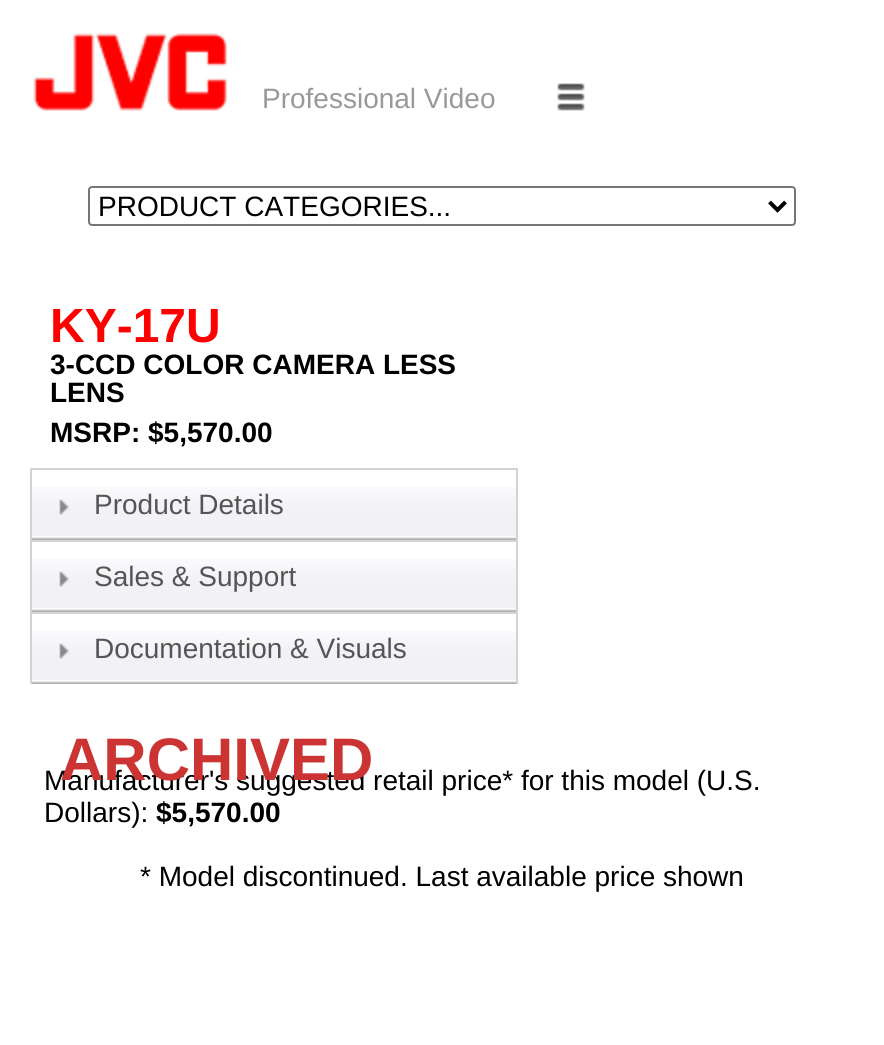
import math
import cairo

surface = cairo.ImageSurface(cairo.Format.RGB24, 884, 1045)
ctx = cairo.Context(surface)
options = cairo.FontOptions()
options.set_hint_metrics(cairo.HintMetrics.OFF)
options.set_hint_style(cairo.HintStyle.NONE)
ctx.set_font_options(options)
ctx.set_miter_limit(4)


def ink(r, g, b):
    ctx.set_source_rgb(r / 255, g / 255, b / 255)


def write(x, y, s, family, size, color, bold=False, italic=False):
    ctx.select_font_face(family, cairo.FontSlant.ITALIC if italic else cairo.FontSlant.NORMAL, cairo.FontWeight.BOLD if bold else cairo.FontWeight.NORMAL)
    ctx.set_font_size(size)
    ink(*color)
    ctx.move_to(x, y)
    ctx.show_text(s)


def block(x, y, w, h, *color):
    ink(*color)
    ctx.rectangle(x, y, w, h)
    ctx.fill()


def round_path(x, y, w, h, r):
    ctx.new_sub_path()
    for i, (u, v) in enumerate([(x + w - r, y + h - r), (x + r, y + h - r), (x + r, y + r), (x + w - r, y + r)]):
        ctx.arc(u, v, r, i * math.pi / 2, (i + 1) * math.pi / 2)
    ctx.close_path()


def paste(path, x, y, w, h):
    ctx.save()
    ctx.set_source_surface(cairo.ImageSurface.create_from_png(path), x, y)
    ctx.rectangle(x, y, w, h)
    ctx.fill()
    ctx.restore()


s1 = dict(family="Liberation Sans", size=28, color=(153, 153, 153))
s2 = dict(family="Liberation Sans", size=28, color=(0, 0, 0))
s3 = dict(family="Liberation Sans", size=48, color=(254, 0, 0), bold=True)
s4 = dict(family="Liberation Sans", size=28, color=(0, 0, 0), bold=True)
s5 = dict(family="Liberation Sans", size=28, color=(85, 85, 85))
s6 = dict(family="Liberation Sans", size=60, color=(204, 51, 51), bold=True)

ink(255, 255, 255)
ctx.paint()
paste("pic1.png", 33, 33, 195, 78)
write(262, 108, "Professional Video", **s1)
paste("pic2.png", 557, 83, 28, 28)
round_path(89, 187, 706, 38, 3)
ink(118, 118, 118)
ctx.stroke()
ctx.new_path()
ctx.move_to(769.5, 202)
ctx.line_to(777.5, 210)
ctx.line_to(785.5, 202)
ink(0, 0, 0)
ctx.set_line_width(4)
ctx.stroke()
write(98, 216, "PRODUCT CATEGORIES...", **s2)
write(50, 342, "KY-17U", **s3)
write(50, 374, "3-CCD COLOR CAMERA LESS", **s4)
write(50, 402, "LENS", **s4)
write(50, 442, "MSRP: $5,570.00", **s4)
paste("pic3.png", 32, 487, 484, 53)
block(30, 468, 488, 2, 211, 211, 211)
block(516, 468, 2, 72, 211, 211, 211)
block(30, 468, 2, 72, 211, 211, 211)
paste("pic4.png", 59, 499, 10, 16)
write(94, 514, "Product Details", **s5)
paste("pic3.png", 32, 559, 484, 53)
block(30, 540, 488, 2, 211, 211, 211)
block(516, 540, 2, 72, 211, 211, 211)
block(30, 540, 2, 72, 211, 211, 211)
paste("pic4.png", 59, 571, 10, 16)
write(94, 586, "Sales & Support", **s5)
paste("pic3.png", 32, 631, 484, 53)
block(30, 612, 488, 2, 211, 211, 211)
block(516, 612, 2, 72, 211, 211, 211)
block(30, 612, 2, 72, 211, 211, 211)
paste("pic4.png", 59, 643, 10, 16)
write(94, 658, "Documentation & Visuals", **s5)
write(44, 790, "Manufacturer's suggested retail price* for this model (U.S.", **s2)
write(60, 780, "ARCHIVED", **s6)
write(44, 822, "Dollars):", **s2)
write(156, 822, "$5,570.00", **s4)
write(140, 886, "* Model discontinued. Last available price shown", **s2)
surface.write_to_png("screenshot.png")
